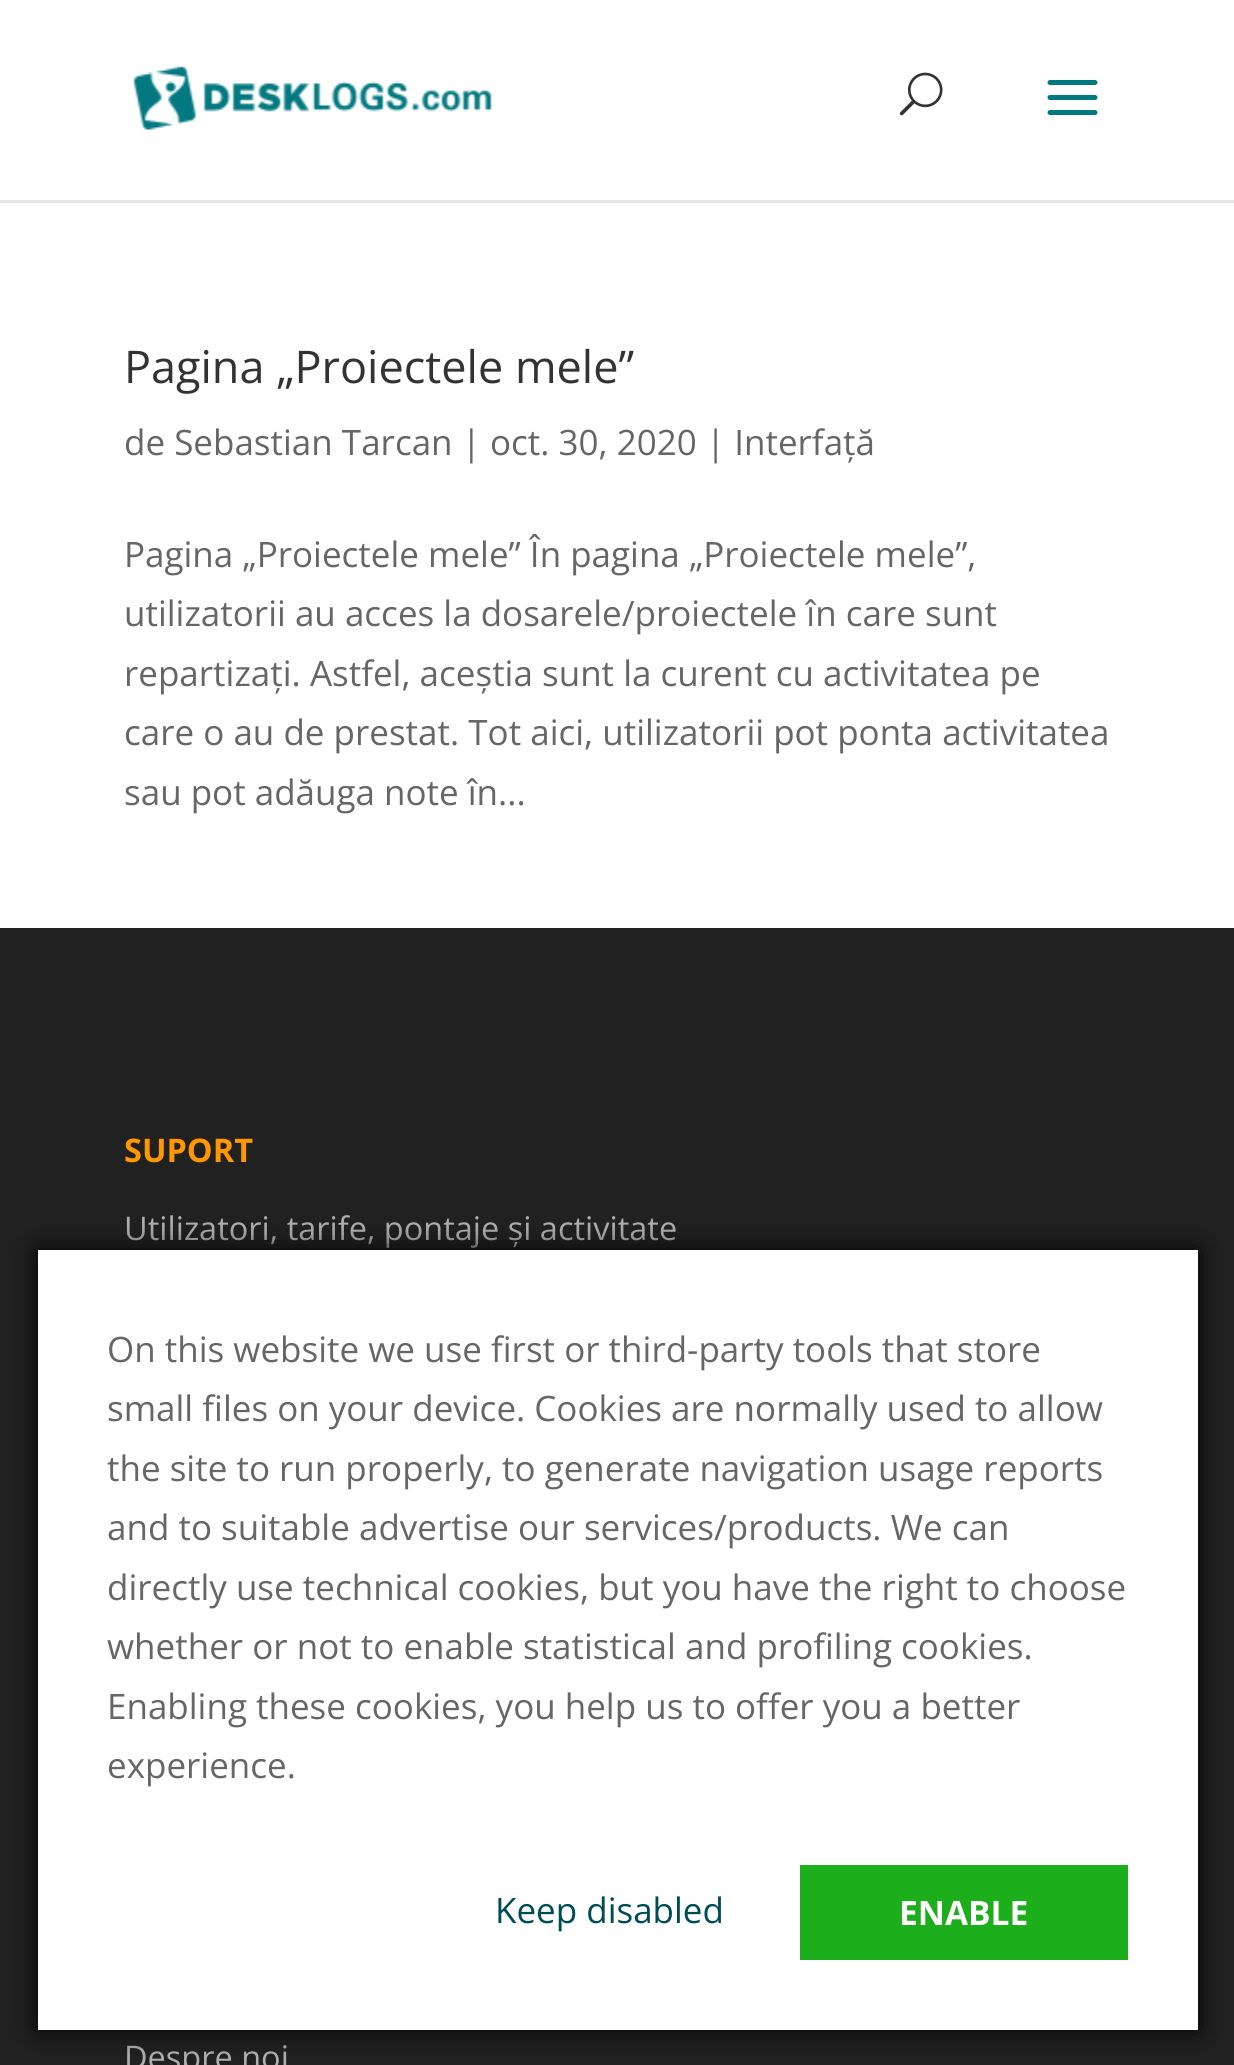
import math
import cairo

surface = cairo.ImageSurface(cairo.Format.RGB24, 1234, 2065)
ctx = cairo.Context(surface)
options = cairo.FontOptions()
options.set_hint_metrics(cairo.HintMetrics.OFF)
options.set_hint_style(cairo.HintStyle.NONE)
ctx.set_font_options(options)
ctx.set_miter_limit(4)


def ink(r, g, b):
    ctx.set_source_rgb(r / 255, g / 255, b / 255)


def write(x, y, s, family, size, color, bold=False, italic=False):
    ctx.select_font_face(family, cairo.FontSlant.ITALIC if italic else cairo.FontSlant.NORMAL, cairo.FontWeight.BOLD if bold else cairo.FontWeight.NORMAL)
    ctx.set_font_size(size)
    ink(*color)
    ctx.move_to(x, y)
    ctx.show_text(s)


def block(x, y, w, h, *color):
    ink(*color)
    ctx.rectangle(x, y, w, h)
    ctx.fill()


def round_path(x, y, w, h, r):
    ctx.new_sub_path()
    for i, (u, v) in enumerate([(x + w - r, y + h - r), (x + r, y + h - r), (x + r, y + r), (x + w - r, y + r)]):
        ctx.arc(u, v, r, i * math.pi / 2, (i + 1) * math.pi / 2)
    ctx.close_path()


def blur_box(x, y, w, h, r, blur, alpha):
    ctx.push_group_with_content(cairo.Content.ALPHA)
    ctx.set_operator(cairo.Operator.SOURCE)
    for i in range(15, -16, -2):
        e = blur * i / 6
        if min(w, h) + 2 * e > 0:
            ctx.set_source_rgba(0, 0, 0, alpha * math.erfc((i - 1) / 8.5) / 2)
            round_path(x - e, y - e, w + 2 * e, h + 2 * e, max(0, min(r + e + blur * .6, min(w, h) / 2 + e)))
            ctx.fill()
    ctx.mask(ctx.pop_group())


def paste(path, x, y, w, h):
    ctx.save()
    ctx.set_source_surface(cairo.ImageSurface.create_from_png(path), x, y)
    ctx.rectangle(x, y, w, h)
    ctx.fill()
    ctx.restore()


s1 = dict(family="Open Sans", size=45, color=(51, 51, 51))
s2 = dict(family="Open Sans", size=35, color=(102, 102, 102))
s3 = dict(family="Open Sans", size=32.5, color=(255, 151, 0), bold=True)
s4 = dict(family="Open Sans", size=32.5, color=(175, 175, 175))
s5 = dict(family="Open Sans", size=35, color=(0, 76, 84))
s6 = dict(family="Open Sans", size=33.5, color=(255, 255, 255), bold=True)

ink(255, 255, 255)
ctx.paint()
block(0, 200, 1234, 3, 230, 230, 230)
paste("pic1.png", 133, 66, 359, 64)
paste("pic2.png", 899, 72, 44, 44)
paste("pic3.png", 1047, 80, 51, 35)
write(124, 383, "Pagina „Proiectele mele”", **s1)
write(124, 455, "de Sebastian Tarcan | oct. 30, 2020 | Interfață", **s2)
write(124, 567, "Pagina „Proiectele mele” În pagina „Proiectele mele”,", **s2)
write(124, 626, "utilizatorii au acces la dosarele/proiectele în care sunt", **s2)
write(124, 686, "repartizați. Astfel, aceștia sunt la curent cu activitatea pe", **s2)
write(124, 745, "care o au de prestat. Tot aici, utilizatorii pot ponta activitatea", **s2)
write(124, 805, "sau pot adăuga note în...", **s2)
block(0, 928, 1234, 1137, 33, 33, 33)
write(124, 1162, "SUPORT", **s3)
write(124, 1240, "Utilizatori, tarife, pontaje și activitate", **s4)
write(124, 2069, "Despre noi", **s4)
ink(0, 0, 0)
blur_box(38, 1250, 1160, 780, 0, 12.5, 1)
block(38, 1250, 1160, 780, 255, 255, 255)
write(107, 1362, "On this website we use first or third-party tools that store", **s2)
write(107, 1421, "small files on your device. Cookies are normally used to allow", **s2)
write(107, 1481, "the site to run properly, to generate navigation usage reports", **s2)
write(107, 1540, "and to suitable advertise our services/products. We can", **s2)
write(107, 1600, "directly use technical cookies, but you have the right to choose", **s2)
write(107, 1659, "whether or not to enable statistical and profiling cookies.", **s2)
write(107, 1719, "Enabling these cookies, you help us to offer you a better", **s2)
write(107, 1778, "experience.", **s2)
write(495, 1923, "Keep disabled", **s5)
block(800, 1865, 328, 95, 29, 174, 28)
write(899, 1925, "ENABLE", **s6)
surface.write_to_png("screenshot.png")
